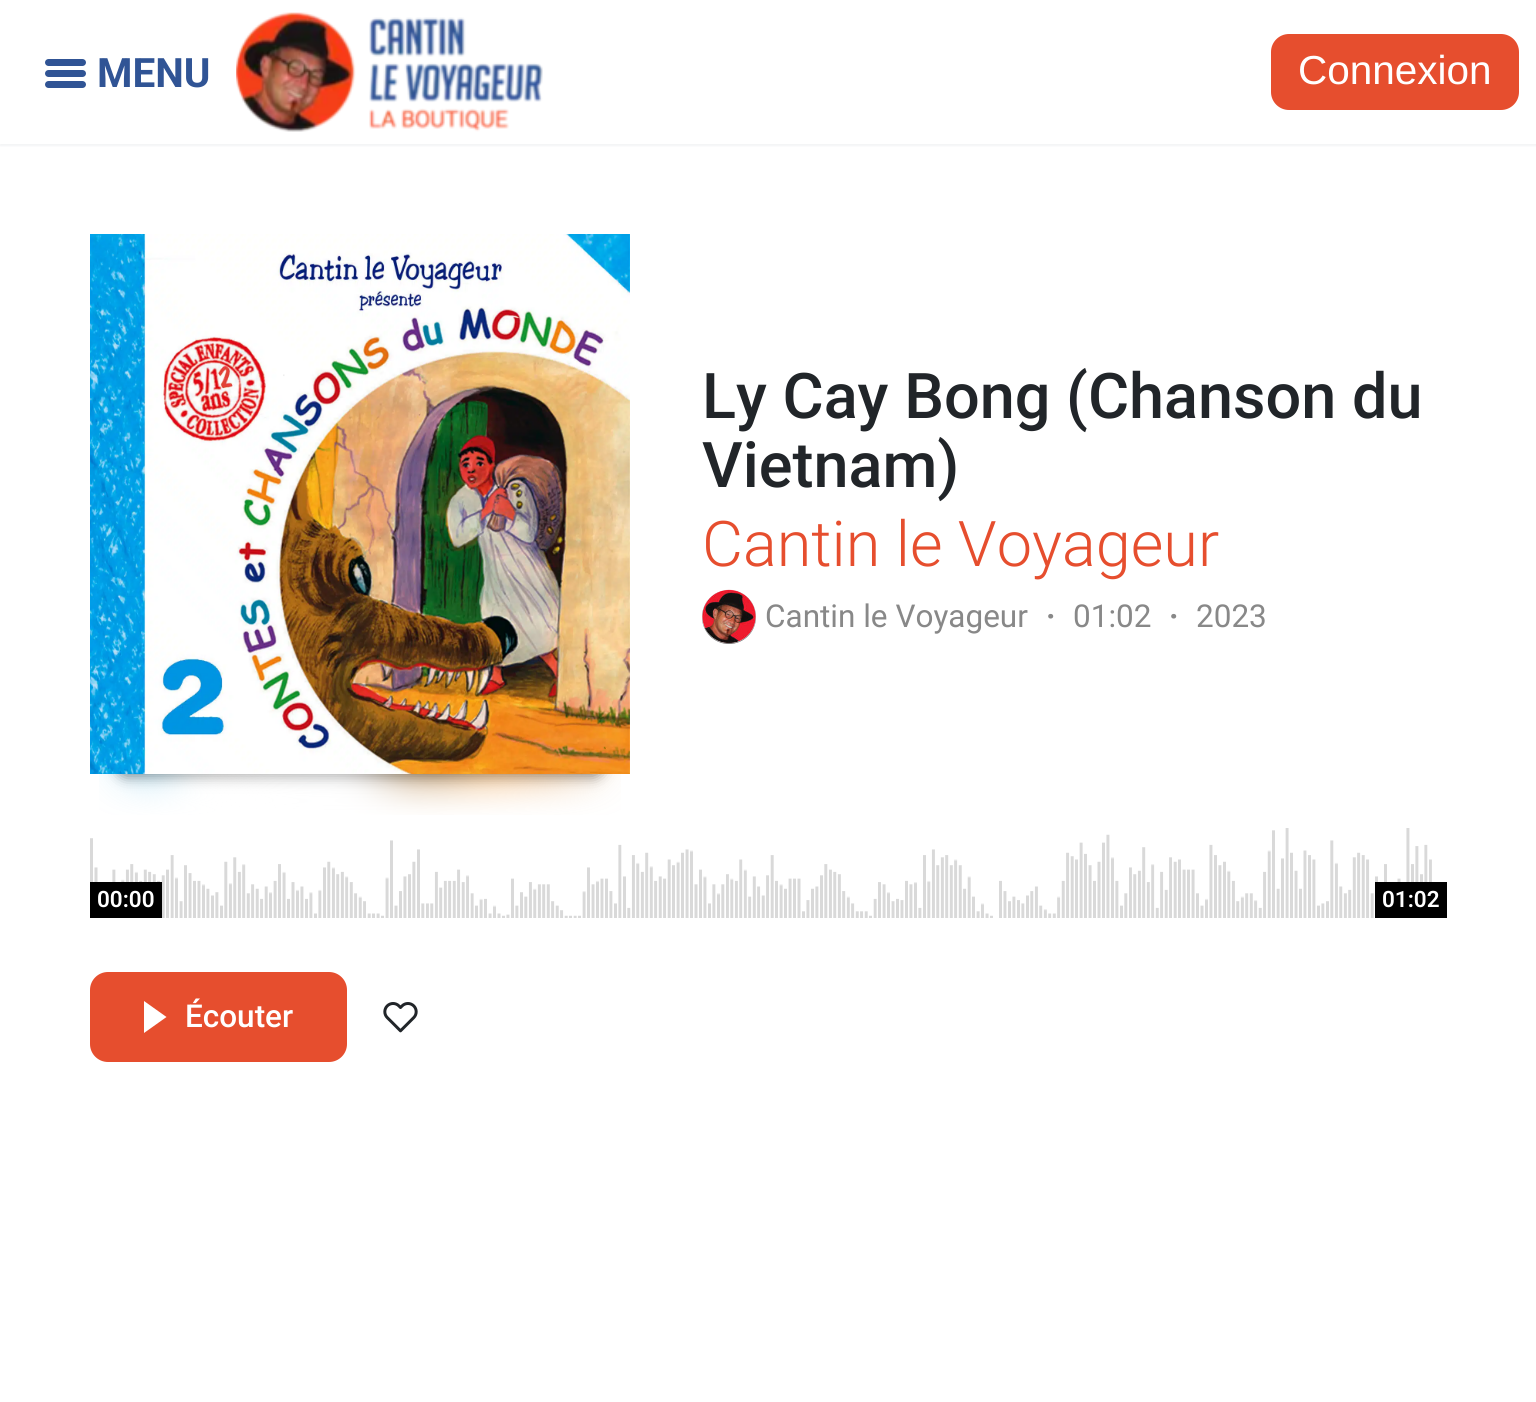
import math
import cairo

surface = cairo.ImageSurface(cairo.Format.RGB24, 1536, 1402)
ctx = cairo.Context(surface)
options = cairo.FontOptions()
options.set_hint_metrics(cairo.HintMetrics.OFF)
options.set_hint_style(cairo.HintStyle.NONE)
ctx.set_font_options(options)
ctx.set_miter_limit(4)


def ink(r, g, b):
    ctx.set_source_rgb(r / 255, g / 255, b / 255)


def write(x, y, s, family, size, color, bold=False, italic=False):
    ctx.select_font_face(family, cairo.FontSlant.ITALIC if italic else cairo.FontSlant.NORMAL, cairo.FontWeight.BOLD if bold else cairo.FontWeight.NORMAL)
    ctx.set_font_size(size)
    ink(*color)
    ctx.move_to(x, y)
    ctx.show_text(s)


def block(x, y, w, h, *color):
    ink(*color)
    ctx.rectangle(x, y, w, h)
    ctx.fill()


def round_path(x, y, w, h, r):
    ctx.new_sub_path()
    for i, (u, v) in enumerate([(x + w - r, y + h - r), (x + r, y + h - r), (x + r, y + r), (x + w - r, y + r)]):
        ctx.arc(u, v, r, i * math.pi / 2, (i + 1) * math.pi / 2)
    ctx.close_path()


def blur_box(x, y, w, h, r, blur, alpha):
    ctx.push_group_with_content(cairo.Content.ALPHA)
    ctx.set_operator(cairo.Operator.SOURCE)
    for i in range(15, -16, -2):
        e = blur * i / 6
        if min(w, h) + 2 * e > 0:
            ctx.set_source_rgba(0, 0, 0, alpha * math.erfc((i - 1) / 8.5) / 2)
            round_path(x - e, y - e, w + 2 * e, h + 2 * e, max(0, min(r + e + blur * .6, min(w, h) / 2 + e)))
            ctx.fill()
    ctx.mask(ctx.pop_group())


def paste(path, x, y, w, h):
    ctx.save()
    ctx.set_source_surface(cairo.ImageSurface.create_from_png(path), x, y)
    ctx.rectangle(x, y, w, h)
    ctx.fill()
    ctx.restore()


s1 = dict(family="Roboto", size=40.5, color=(48, 84, 149), bold=True)
s2 = dict(family="Liberation Sans", size=40.5, color=(255, 255, 255))
s3 = dict(family="Roboto Medium", size=63, color=(33, 37, 41))
s4 = dict(family="Roboto Light", size=63, color=(230, 78, 46))
s5 = dict(family="Roboto", size=31.5, color=(136, 136, 136))
s6 = dict(family="Roboto", size=31.5, color=(136, 136, 136), bold=True)
s7 = dict(family="Roboto SemiBold", size=22.5, color=(255, 255, 255))
s8 = dict(family="Roboto Medium", size=31.5, color=(255, 255, 255))

ink(255, 255, 255)
ctx.paint()
ctx.save()
ctx.rectangle(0, 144, 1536, 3)
ctx.clip()
ink(130, 140, 150)
blur_box(0, 2, 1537, 144, 0, 1, 0.1)
ctx.restore()
ink(48, 84, 149)
round_path(45, 70, 41, 7, 3.5)
ctx.fill()
round_path(45, 59, 41, 7, 3.5)
ctx.fill()
round_path(45, 81, 41, 7, 3.5)
ctx.fill()
write(97, 87, "MENU", **s1)
paste("pic1.png", 236, 12, 307, 120)
ink(230, 78, 46)
round_path(1271, 34, 248, 76, 18)
ctx.fill()
write(1298, 84, "Connexion", **s2)
ink(0, 0, 0)
blur_box(117, 749, 486, 27, 13.5, 7, 0.5)
paste("pic2.png", 90, 234, 540, 540)
paste("pic3.png", 99, 774, 522, 41)
write(702, 418, "Ly Cay Bong (Chanson du", **s3)
write(702, 487, "Vietnam)", **s3)
write(702, 566, "Cantin le Voyageur", **s4)
ink(102, 102, 102)
ctx.new_path()
ctx.arc(729, 617, 27, 0, 2 * math.pi)
ctx.fill()
paste("pic4.png", 702, 589, 54, 55)
write(765, 627, "Cantin le Voyageur", **s5)
write(1046, 627, "·", **s6)
write(1073, 627, "01:02", **s5)
write(1169, 627, "·", **s6)
write(1196, 627, "2023", **s5)
paste("pic5.png", 90, 828, 1342, 90)
block(90, 882, 72, 36, 0, 0, 0)
write(97, 907, "00:00", **s7)
block(1375, 882, 72, 36, 0, 0, 0)
write(1382, 907, "01:02", **s7)
ink(230, 78, 46)
round_path(90, 972, 257, 90, 18)
ctx.fill()
ink(255, 255, 255)
ctx.new_path()
ctx.move_to(144, 1033)
ctx.line_to(144, 1001)
ctx.line_to(166.5, 1017)
ctx.close_path()
ctx.fill()
write(185, 1027, "Écouter", **s8)
paste("pic6.png", 383, 1002, 35, 31)
surface.write_to_png("screenshot.png")
